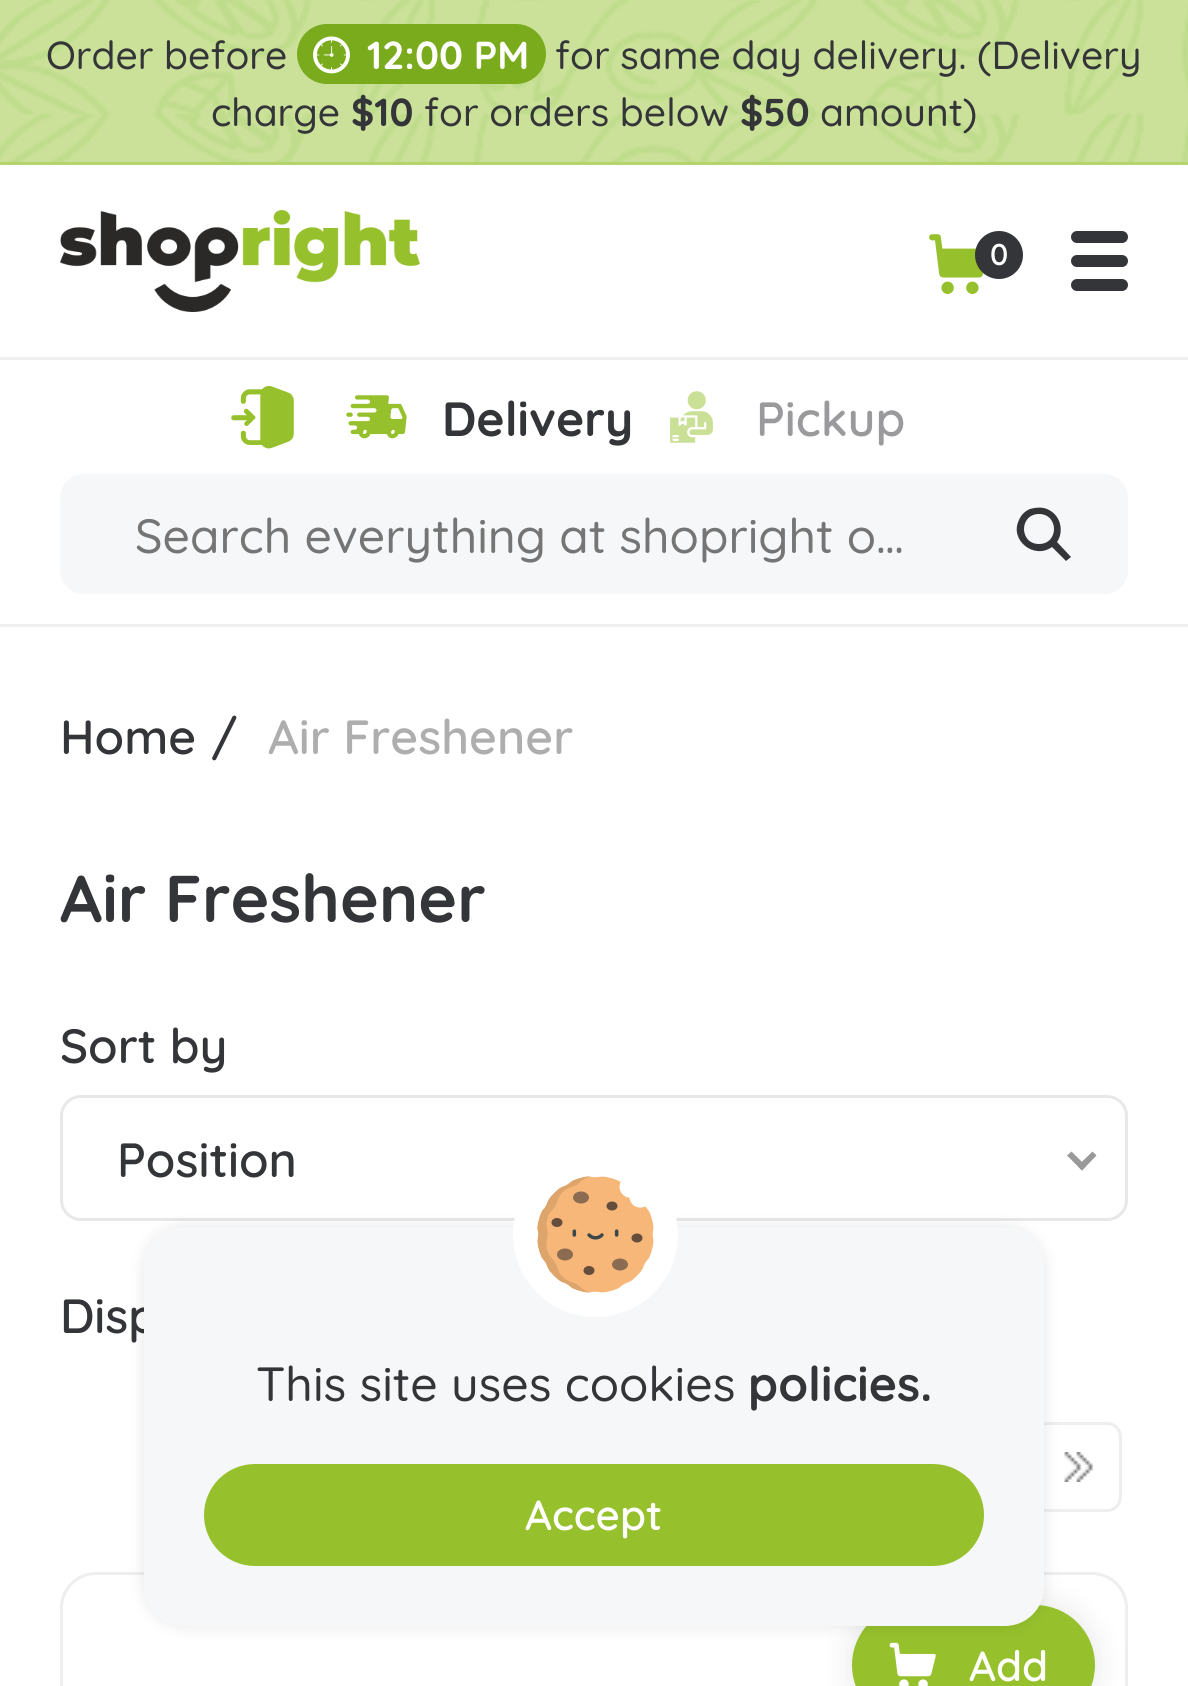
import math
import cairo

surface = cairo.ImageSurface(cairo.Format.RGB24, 1188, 1686)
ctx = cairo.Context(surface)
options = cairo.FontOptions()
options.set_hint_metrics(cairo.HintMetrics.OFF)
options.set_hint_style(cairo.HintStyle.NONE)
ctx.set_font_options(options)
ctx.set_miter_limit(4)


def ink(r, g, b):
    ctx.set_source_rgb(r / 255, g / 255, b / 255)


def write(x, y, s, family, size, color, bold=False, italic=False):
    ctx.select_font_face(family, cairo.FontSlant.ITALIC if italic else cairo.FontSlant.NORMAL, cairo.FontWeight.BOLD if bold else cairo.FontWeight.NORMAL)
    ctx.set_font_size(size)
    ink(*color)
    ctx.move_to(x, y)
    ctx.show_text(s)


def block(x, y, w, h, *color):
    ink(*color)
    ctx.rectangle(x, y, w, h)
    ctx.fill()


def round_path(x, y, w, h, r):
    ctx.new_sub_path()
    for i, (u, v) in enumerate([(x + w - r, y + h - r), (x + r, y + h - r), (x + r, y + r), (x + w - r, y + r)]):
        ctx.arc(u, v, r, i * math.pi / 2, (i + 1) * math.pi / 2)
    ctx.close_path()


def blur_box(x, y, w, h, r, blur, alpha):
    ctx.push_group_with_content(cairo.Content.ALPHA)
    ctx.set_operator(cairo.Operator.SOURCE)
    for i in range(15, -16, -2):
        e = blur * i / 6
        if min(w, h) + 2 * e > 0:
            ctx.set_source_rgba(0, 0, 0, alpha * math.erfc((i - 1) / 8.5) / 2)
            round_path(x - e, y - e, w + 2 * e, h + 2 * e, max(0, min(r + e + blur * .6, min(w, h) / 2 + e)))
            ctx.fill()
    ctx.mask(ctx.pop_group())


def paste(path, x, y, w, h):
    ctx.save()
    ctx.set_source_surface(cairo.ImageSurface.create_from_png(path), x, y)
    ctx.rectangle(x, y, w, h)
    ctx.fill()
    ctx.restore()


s1 = dict(family="Quicksand Medium", size=39, color=(52, 53, 56))
s2 = dict(family="Quicksand", size=39, color=(255, 255, 255), bold=True)
s3 = dict(family="Quicksand", size=39, color=(52, 53, 56), bold=True)
s4 = dict(family="Quicksand SemiBold", size=30, color=(255, 255, 255))
s5 = dict(family="Quicksand", size=48, color=(52, 53, 56), bold=True)
s6 = dict(family="Quicksand SemiBold", size=48, color=(154, 154, 156))
s7 = dict(family="Quicksand Medium", size=48, color=(117, 117, 117))
s8 = dict(family="Quicksand SemiBold", size=48, color=(52, 53, 56))
s9 = dict(family="Quicksand SemiBold", size=48, color=(174, 174, 175))
s10 = dict(family="Quicksand", size=66, color=(52, 53, 56), bold=True)
s11 = dict(family="Quicksand SemiBold", size=42, color=(255, 255, 255))
s12 = dict(family="Quicksand Medium", size=48, color=(52, 53, 56))

ink(255, 255, 255)
ctx.paint()
block(0, 624, 1188, 3, 238, 238, 238)
block(0, 0, 1188, 162, 203, 224, 150)
paste("pic1.png", 0, 0, 1188, 162)
block(0, 162, 1188, 3, 182, 212, 108)
write(46, 69, "Order before", **s1)
ink(121, 171, 28)
round_path(297, 24, 249, 60, 30)
ctx.fill()
paste("pic2.png", 313, 36, 37, 38)
write(367, 69, "12:00 PM", **s2)
write(555, 69, "for same day delivery. (Delivery", **s1)
write(211, 126, "charge", **s1)
write(351, 126, "$10", **s3)
write(424, 126, "for orders below", **s1)
write(740, 126, "$50", **s3)
write(820, 126, "amount)", **s1)
block(0, 357, 1188, 3, 238, 238, 238)
paste("pic3.png", 60, 210, 360, 102)
ink(52, 53, 56)
round_path(1071, 231, 57, 12, 6)
ctx.fill()
round_path(1071, 255, 57, 12, 6)
ctx.fill()
round_path(1071, 279, 57, 12, 6)
ctx.fill()
paste("pic4.png", 929, 234, 55, 60)
ctx.arc(999, 255, 24, 0, 2 * math.pi)
ctx.fill()
write(990, 265, "0", **s4)
paste("pic5.png", 231, 386, 63, 63)
paste("pic6.png", 346, 395, 61, 44)
write(442, 436, "Delivery", **s5)
paste("pic7.png", 670, 391, 43, 52)
write(756, 436, "Pickup", **s6)
ink(246, 247, 248)
round_path(60, 474, 1068, 120, 24)
ctx.fill()
write(135, 553, "Search everything at shopright o…", **s7)
ink(52, 53, 56)
ctx.new_path()
ctx.move_to(1057, 542)
ctx.curve_to(1064, 532, 1061, 516, 1049, 510)
ctx.curve_to(1044, 507, 1037, 507, 1030, 509)
ctx.curve_to(1025, 511, 1021, 515, 1019, 520)
ctx.curve_to(1009, 540, 1034, 560, 1052, 547)
ctx.line_to(1066, 561)
ctx.line_to(1071, 557)
ctx.close_path()
ctx.move_to(1039, 544)
ctx.curve_to(1019, 544, 1019, 514, 1039, 514)
ctx.curve_to(1059, 514, 1059, 544, 1039, 544)
ctx.close_path()
ctx.fill()
write(60, 754, "Home", **s8)
write(211, 754, "/", **s8)
write(268, 754, "Air Freshener", **s9)
write(60, 922, "Air Freshener", **s10)
write(60, 1063, "Sort by", **s8)
round_path(61.5, 1096.5, 1065, 123, 19.5)
ink(232, 232, 232)
ctx.set_line_width(3)
ctx.stroke()
write(117, 1177, "Position", **s8)
ink(153, 153, 153)
ctx.new_path()
ctx.move_to(1092.5, 1151.5)
ctx.line_to(1096.5, 1155.5)
ctx.line_to(1082, 1170.5)
ctx.line_to(1077.5, 1166)
ctx.close_path()
ctx.fill()
ctx.new_path()
ctx.move_to(1071.5, 1151.5)
ctx.line_to(1086, 1166)
ctx.line_to(1082, 1170.5)
ctx.line_to(1067, 1155.5)
ctx.close_path()
ctx.fill()
write(60, 1333, "Disp", **s8)
paste("pic8.png", 1064, 1452, 30, 30)
round_path(1033.5, 1423.5, 87, 87, 13.5)
ink(238, 238, 238)
ctx.stroke()
round_path(61.5, 1573.5, 1065, 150, 34.5)
ctx.stroke()
ink(0, 0, 0)
blur_box(852, 1605, 243, 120, 60, 15, 0.1)
ink(150, 193, 45)
round_path(852, 1605, 243, 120, 60)
ctx.fill()
paste("pic9.png", 889, 1642, 47, 44)
write(969, 1681, "Add", **s11)
ink(0, 0, 0)
blur_box(144, 1227, 900, 399, 39, 7.5, 0.1)
ink(246, 247, 248)
round_path(144, 1227, 900, 399, 39)
ctx.fill()
ink(255, 255, 255)
ctx.arc(595.5, 1234.5, 82.5, 0, 2 * math.pi)
ctx.fill()
paste("pic10.png", 537, 1176, 117, 117)
write(256, 1401, "This site uses cookies", **s12)
write(748, 1401, "policies.", **s5)
ink(150, 193, 45)
round_path(204, 1464, 780, 102, 51)
ctx.fill()
write(525, 1530, "Accept", **s11)
surface.write_to_png("screenshot.png")
